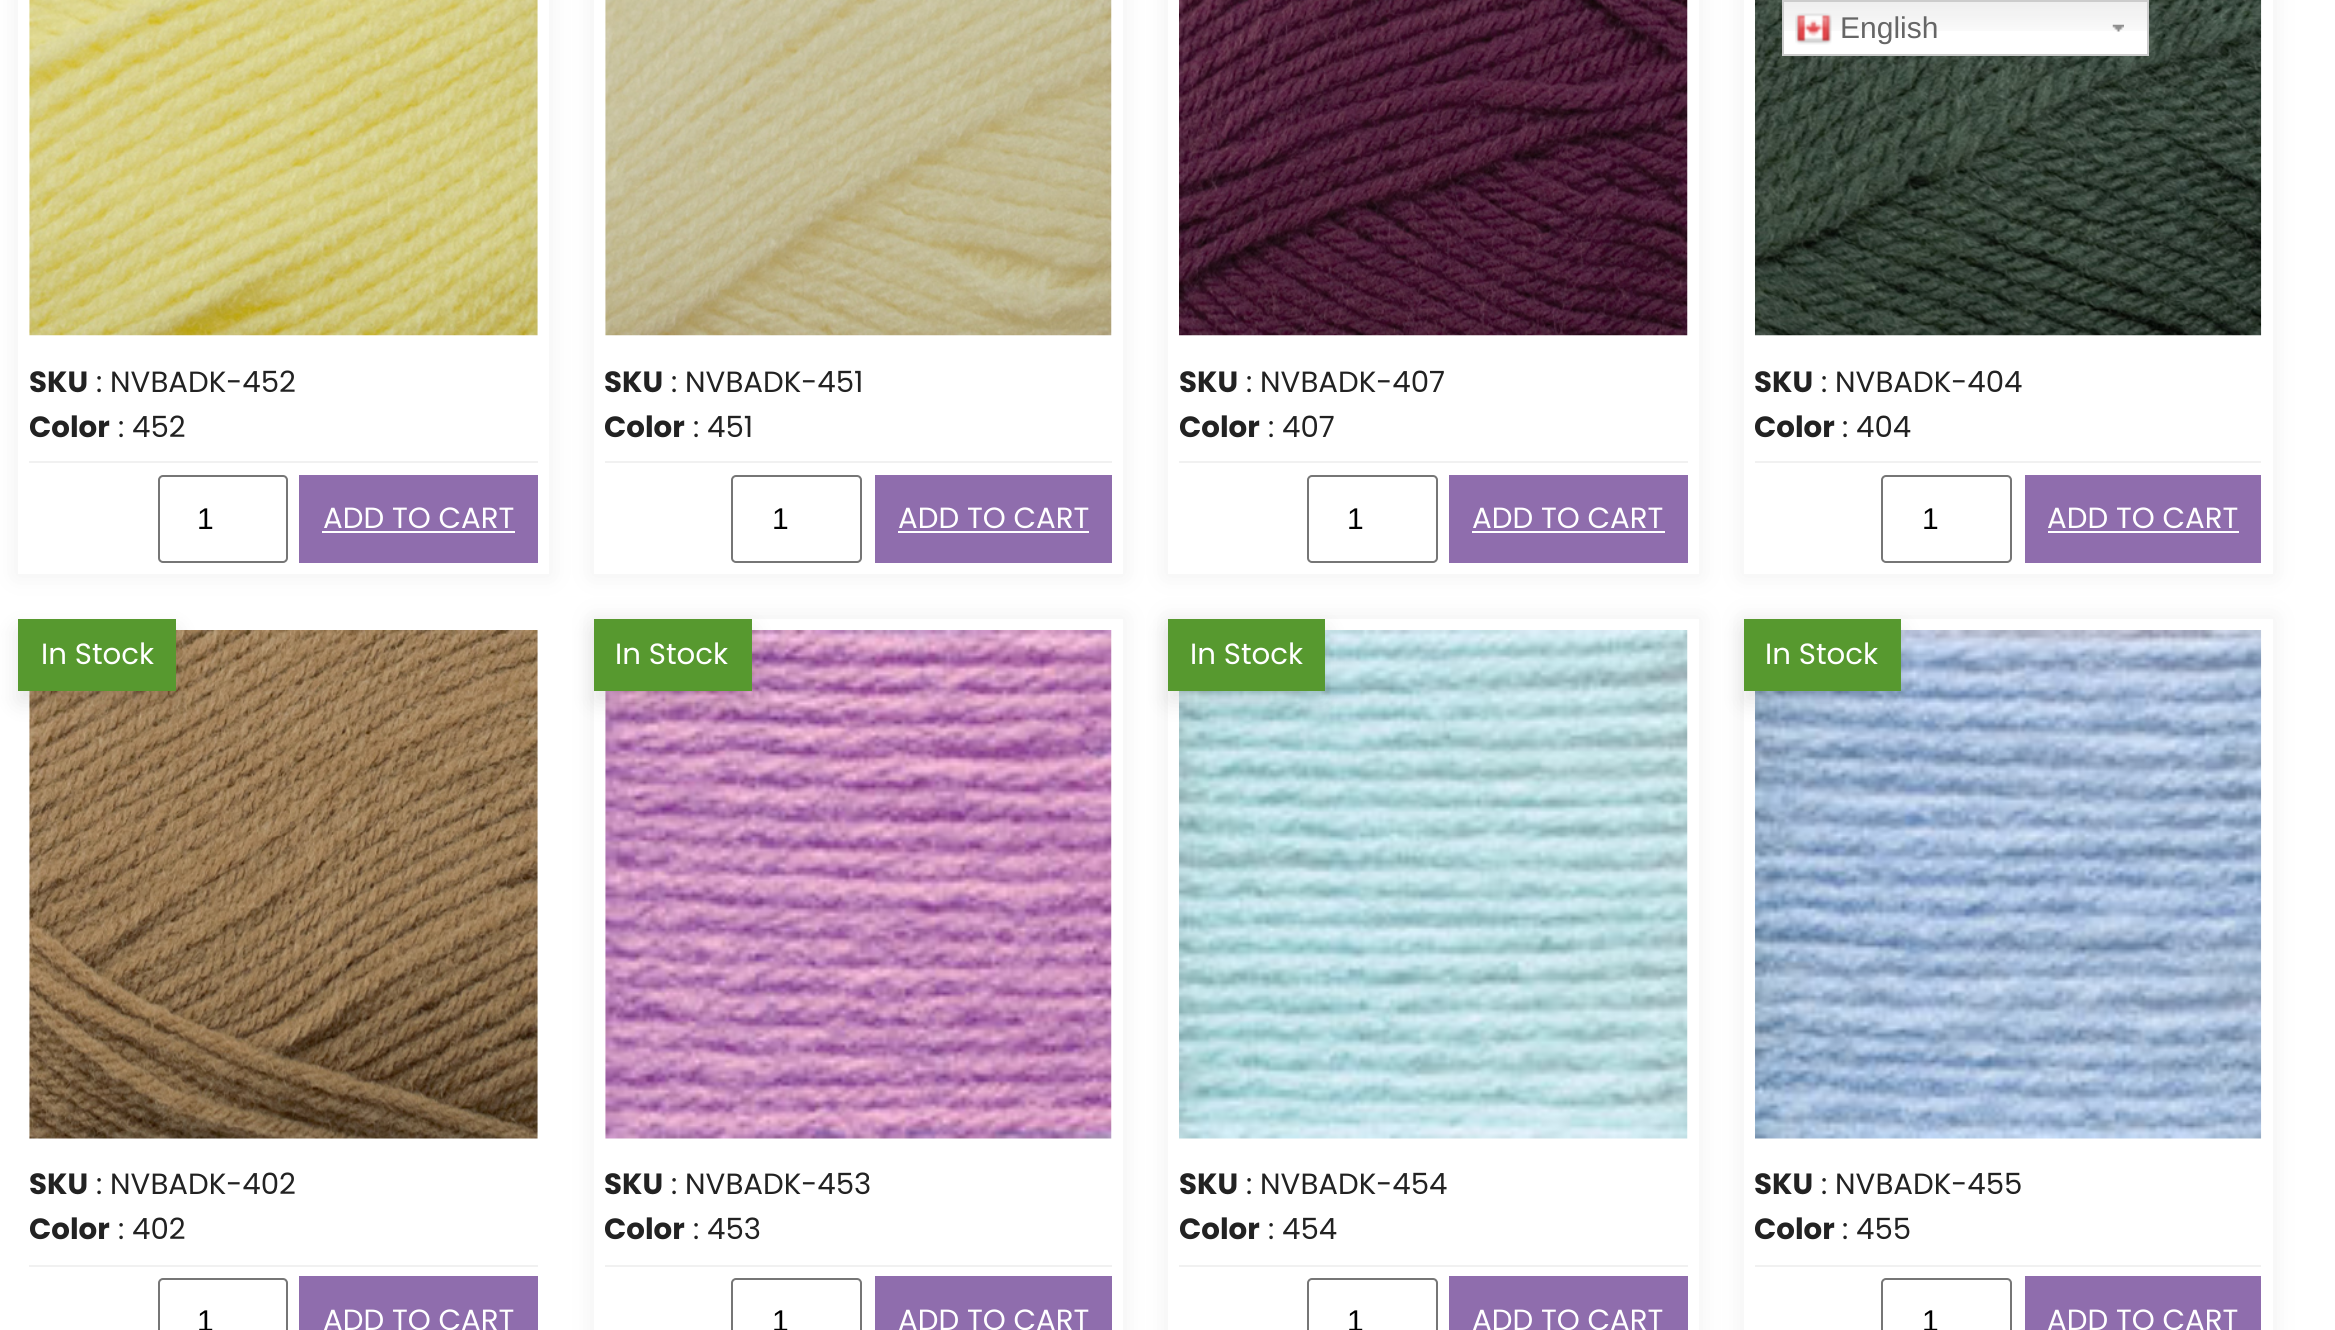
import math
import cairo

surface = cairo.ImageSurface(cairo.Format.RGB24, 2335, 1330)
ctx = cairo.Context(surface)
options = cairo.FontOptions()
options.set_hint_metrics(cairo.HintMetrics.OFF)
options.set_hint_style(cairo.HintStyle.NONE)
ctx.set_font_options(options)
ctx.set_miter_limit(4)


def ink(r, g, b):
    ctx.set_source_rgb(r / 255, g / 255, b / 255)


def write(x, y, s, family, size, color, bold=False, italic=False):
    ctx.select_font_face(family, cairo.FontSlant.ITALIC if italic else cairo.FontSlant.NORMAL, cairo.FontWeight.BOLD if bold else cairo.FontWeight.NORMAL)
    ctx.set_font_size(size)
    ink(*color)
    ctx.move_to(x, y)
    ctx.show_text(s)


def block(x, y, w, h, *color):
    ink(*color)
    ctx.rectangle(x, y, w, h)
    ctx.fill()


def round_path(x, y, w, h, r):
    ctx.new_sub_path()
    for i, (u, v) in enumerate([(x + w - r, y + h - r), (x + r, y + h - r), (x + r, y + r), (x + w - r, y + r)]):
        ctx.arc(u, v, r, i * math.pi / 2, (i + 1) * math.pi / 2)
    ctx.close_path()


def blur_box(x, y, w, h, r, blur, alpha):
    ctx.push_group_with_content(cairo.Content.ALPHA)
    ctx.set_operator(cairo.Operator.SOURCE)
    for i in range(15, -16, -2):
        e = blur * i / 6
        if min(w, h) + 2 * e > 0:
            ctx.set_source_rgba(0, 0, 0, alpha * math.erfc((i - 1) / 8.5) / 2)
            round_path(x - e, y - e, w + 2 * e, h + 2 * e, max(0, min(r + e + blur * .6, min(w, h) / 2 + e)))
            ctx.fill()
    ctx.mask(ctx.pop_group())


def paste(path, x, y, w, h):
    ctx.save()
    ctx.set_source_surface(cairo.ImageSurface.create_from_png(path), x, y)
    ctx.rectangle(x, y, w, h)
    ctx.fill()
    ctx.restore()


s1 = dict(family="Liberation Sans", size=30, color=(102, 102, 102))
s2 = dict(family="Poppins", size=29.25, color=(34, 34, 34), bold=True)
s3 = dict(family="Poppins", size=29.25, color=(34, 34, 34))
s4 = dict(family="Liberation Sans", size=30, color=(0, 0, 0))
s5 = dict(family="Poppins", size=29.25, color=(255, 255, 255))

ink(255, 255, 255)
ctx.paint()
ink(241, 241, 241)
blur_box(1742, -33, 533, 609, 0, 11, 1)
block(1744, 0, 529, 574, 255, 255, 255)
paste("pic7.png", 1755, 0, 507, 336)
block(1784, 31, 363, 23, 255, 255, 255)
paste("pic1.png", 1784, 2, 363, 29)
paste("pic2.png", 2112, 24, 12, 8)
ctx.rectangle(1783, 1, 365, 54)
ink(204, 204, 204)
ctx.stroke()
paste("pic3.png", 1795, 13, 37, 32)
write(1840, 38, "English", **s1)
ink(241, 241, 241)
blur_box(16, -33, 535, 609, 0, 11, 1)
block(18, 0, 531, 574, 255, 255, 255)
paste("pic4.png", 29, 0, 509, 336)
write(29, 392, "SKU", **s2)
write(96, 392, ": NVBADK-452", **s3)
write(29, 437, "Color", **s2)
write(118, 437, ": 452", **s3)
block(29, 461, 509, 2, 241, 241, 241)
round_path(159, 476, 128, 86, 4)
ink(118, 118, 118)
ctx.stroke()
write(197, 529, "1", **s4)
block(299, 475, 239, 88, 143, 109, 173)
write(323, 528, "ADD TO CART", **s5)
block(322, 531, 193, 2, 255, 255, 255)
ink(241, 241, 241)
blur_box(592, -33, 533, 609, 0, 11, 1)
block(594, 0, 529, 574, 255, 255, 255)
paste("pic5.png", 605, 0, 507, 336)
write(604, 392, "SKU", **s2)
write(671, 392, ": NVBADK-451", **s3)
write(604, 437, "Color", **s2)
write(693, 437, ": 451", **s3)
block(605, 461, 507, 2, 241, 241, 241)
round_path(732, 476, 129, 86, 4)
ink(118, 118, 118)
ctx.stroke()
write(772, 529, "1", **s4)
block(875, 475, 237, 88, 143, 109, 173)
write(898, 528, "ADD TO CART", **s5)
block(898, 531, 191, 2, 255, 255, 255)
ink(241, 241, 241)
blur_box(1166, -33, 535, 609, 0, 11, 1)
block(1168, 0, 531, 574, 255, 255, 255)
paste("pic6.png", 1179, 0, 509, 336)
write(1179, 392, "SKU", **s2)
write(1246, 392, ": NVBADK-407", **s3)
write(1179, 437, "Color", **s2)
write(1268, 437, ": 407", **s3)
block(1179, 461, 509, 2, 241, 241, 241)
round_path(1308, 476, 129, 86, 4)
ink(118, 118, 118)
ctx.stroke()
write(1347, 529, "1", **s4)
block(1449, 475, 239, 88, 143, 109, 173)
write(1472, 528, "ADD TO CART", **s5)
block(1472, 531, 193, 2, 255, 255, 255)
write(1754, 392, "SKU", **s2)
write(1821, 392, ": NVBADK-404", **s3)
write(1754, 437, "Color", **s2)
write(1842, 437, ": 404", **s3)
block(1755, 461, 506, 2, 241, 241, 241)
round_path(1882, 476, 129, 86, 4)
ink(118, 118, 118)
ctx.stroke()
write(1922, 529, "1", **s4)
block(2025, 475, 236, 88, 143, 109, 173)
write(2047, 528, "ADD TO CART", **s5)
block(2048, 531, 191, 2, 255, 255, 255)
paste("pic8.png", 29, 630, 509, 509)
ink(0, 0, 0)
blur_box(18, 630, 158, 72, 0, 11, 0.1)
block(18, 619, 158, 72, 87, 153, 47)
write(41, 664, "In Stock", **s5)
write(29, 1194, "SKU", **s2)
write(96, 1194, ": NVBADK-402", **s3)
write(29, 1239, "Color", **s2)
write(118, 1239, ": 402", **s3)
block(29, 1265, 509, 2, 241, 241, 241)
round_path(159, 1279, 128, 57, 4)
ink(118, 118, 118)
ctx.stroke()
write(197, 1331, "1", **s4)
block(299, 1276, 239, 54, 143, 109, 173)
write(323, 1330, "ADD TO CART", **s5)
ink(241, 241, 241)
blur_box(592, 617, 533, 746, 0, 11, 1)
block(594, 619, 529, 711, 255, 255, 255)
paste("pic9.png", 605, 630, 507, 509)
ink(0, 0, 0)
blur_box(594, 630, 158, 72, 0, 11, 0.1)
block(594, 619, 158, 72, 87, 153, 47)
write(615, 664, "In Stock", **s5)
write(604, 1194, "SKU", **s2)
write(671, 1194, ": NVBADK-453", **s3)
write(604, 1239, "Color", **s2)
write(693, 1239, ": 453", **s3)
block(605, 1265, 507, 2, 241, 241, 241)
round_path(732, 1279, 129, 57, 4)
ink(118, 118, 118)
ctx.stroke()
write(772, 1331, "1", **s4)
block(875, 1276, 237, 54, 143, 109, 173)
write(898, 1330, "ADD TO CART", **s5)
ink(241, 241, 241)
blur_box(1166, 617, 535, 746, 0, 11, 1)
block(1168, 619, 531, 711, 255, 255, 255)
paste("pic10.png", 1179, 630, 509, 509)
ink(0, 0, 0)
blur_box(1168, 630, 157, 72, 0, 11, 0.1)
block(1168, 619, 157, 72, 87, 153, 47)
write(1190, 664, "In Stock", **s5)
write(1179, 1194, "SKU", **s2)
write(1246, 1194, ": NVBADK-454", **s3)
write(1179, 1239, "Color", **s2)
write(1268, 1239, ": 454", **s3)
block(1179, 1265, 509, 2, 241, 241, 241)
round_path(1308, 1279, 129, 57, 4)
ink(118, 118, 118)
ctx.stroke()
write(1347, 1331, "1", **s4)
block(1449, 1276, 239, 54, 143, 109, 173)
write(1472, 1330, "ADD TO CART", **s5)
ink(241, 241, 241)
blur_box(1742, 617, 533, 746, 0, 11, 1)
block(1744, 619, 529, 711, 255, 255, 255)
paste("pic11.png", 1755, 630, 507, 509)
ink(0, 0, 0)
blur_box(1744, 630, 157, 72, 0, 11, 0.1)
block(1744, 619, 157, 72, 87, 153, 47)
write(1765, 664, "In Stock", **s5)
write(1754, 1194, "SKU", **s2)
write(1821, 1194, ": NVBADK-455", **s3)
write(1754, 1239, "Color", **s2)
write(1842, 1239, ": 455", **s3)
block(1755, 1265, 506, 2, 241, 241, 241)
round_path(1882, 1279, 129, 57, 4)
ink(118, 118, 118)
ctx.stroke()
write(1922, 1331, "1", **s4)
block(2025, 1276, 236, 54, 143, 109, 173)
write(2047, 1330, "ADD TO CART", **s5)
surface.write_to_png("screenshot.png")
